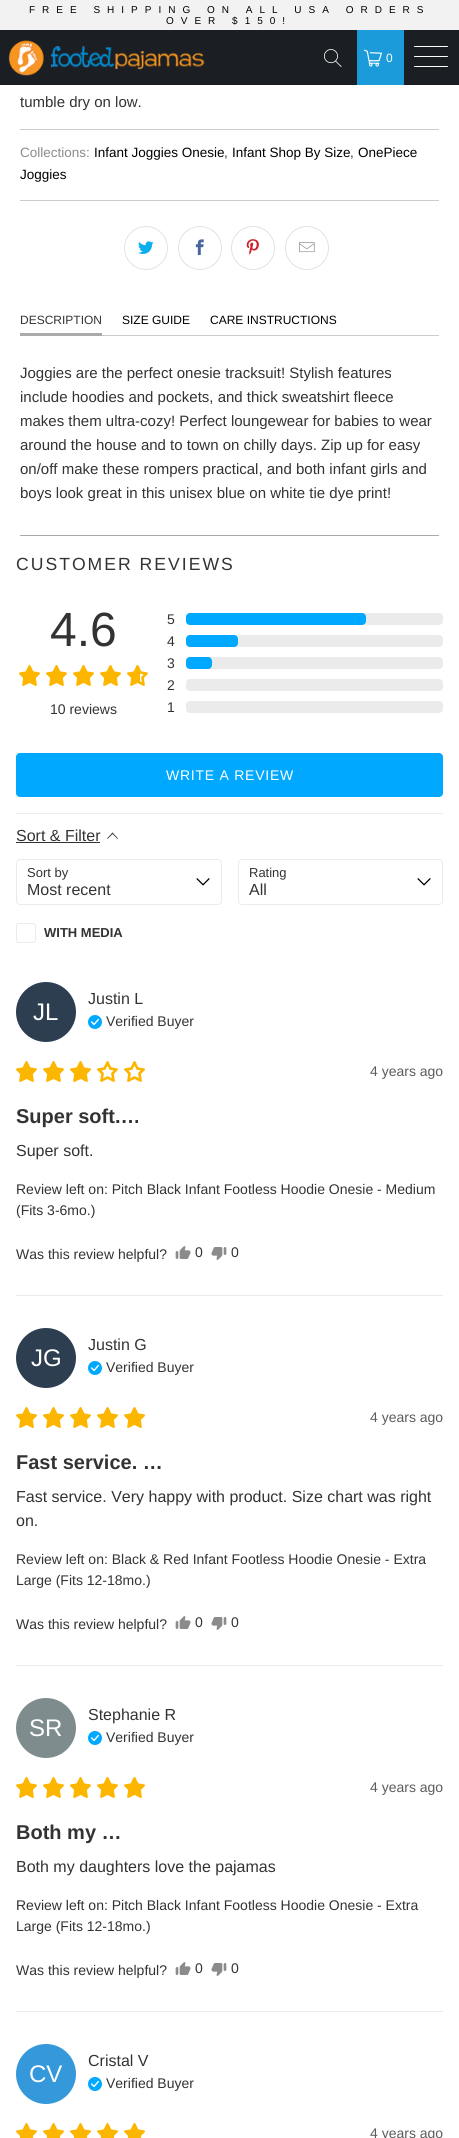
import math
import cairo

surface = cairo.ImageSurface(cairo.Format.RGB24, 459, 2138)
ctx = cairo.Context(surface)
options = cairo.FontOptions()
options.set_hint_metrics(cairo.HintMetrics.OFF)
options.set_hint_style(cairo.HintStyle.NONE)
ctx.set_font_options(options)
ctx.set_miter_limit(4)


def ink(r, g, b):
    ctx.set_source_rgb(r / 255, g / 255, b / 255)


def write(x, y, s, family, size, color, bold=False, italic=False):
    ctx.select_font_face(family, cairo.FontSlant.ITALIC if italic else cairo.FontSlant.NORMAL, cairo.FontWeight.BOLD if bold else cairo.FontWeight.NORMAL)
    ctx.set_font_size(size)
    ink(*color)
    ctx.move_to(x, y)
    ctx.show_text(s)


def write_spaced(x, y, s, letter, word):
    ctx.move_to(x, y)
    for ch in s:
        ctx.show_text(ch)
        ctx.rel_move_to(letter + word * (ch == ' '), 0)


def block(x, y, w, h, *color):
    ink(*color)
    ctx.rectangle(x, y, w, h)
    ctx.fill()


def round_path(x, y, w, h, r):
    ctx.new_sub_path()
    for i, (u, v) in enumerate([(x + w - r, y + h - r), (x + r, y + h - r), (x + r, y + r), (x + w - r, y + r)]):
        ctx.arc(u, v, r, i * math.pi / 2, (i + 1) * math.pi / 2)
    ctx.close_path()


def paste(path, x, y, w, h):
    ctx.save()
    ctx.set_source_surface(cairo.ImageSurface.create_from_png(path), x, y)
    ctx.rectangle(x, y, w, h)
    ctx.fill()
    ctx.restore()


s1 = dict(family="Liberation Sans", size=15, color=(51, 51, 51))
s2 = dict(family="Liberation Sans", size=13.5, color=(140, 139, 139))
s3 = dict(family="Liberation Sans", size=13.5, color=(0, 0, 0))
s4 = dict(family="Liberation Sans", size=13.5, color=(51, 51, 51))
s5 = dict(family="Liberation Sans", size=12, color=(51, 51, 51))
s6 = dict(family="Liberation Sans", size=12, color=(0, 0, 0))
s7 = dict(family="Liberation Sans", size=48, color=(51, 51, 51))
s8 = dict(family="Liberation Sans", size=14, color=(51, 51, 51))
s9 = dict(family="Liberation Sans", size=16, color=(51, 51, 51))
s10 = dict(family="Liberation Sans", size=13, color=(51, 51, 51))
s11 = dict(family="Liberation Sans", size=13, color=(51, 51, 51), bold=True)
s12 = dict(family="Liberation Sans", size=24, color=(255, 255, 255))
s13 = dict(family="Liberation Sans", size=14, color=(92, 92, 92))
s14 = dict(family="Liberation Sans", size=20, color=(51, 51, 51), bold=True)

ink(255, 255, 255)
ctx.paint()
block(0, 0, 459, 30, 242, 242, 242)
ctx.select_font_face("Liberation Sans")
ctx.set_font_size(10)
ink(0, 0, 0)
write_spaced(29, 13, "FREE SHIPPING ON ALL USA ORDERS", 7, 0)
write_spaced(166, 24, "OVER $150!", 7, 0)
block(0, 30, 459, 55, 27, 31, 35)
paste("pic1.png", 8, 40, 197, 36)
paste("pic2.png", 324, 49, 18, 18)
block(357, 30, 47, 55, 27, 155, 218)
paste("pic3.png", 364, 49, 18, 18)
ctx.set_font_size(12)
ink(255, 255, 255)
write_spaced(386, 62, "0", 1, 0)
round_path(414, 46, 34, 1, 0.5)
ctx.fill()
round_path(414, 56, 34, 1, 0.5)
ctx.fill()
round_path(414, 66, 34, 1, 0.5)
ctx.fill()
write(20, 107, "tumble dry on low.", **s1)
block(20, 129, 419, 1, 204, 204, 204)
write(20, 157, "Collections:", **s2)
write(94, 157, "Infant Joggies Onesie", **s3)
write(224, 157, ",", **s4)
write(232, 157, "Infant Shop By Size", **s3)
write(350, 157, ",", **s4)
write(358, 157, "OnePiece", **s3)
write(20, 179, "Joggies", **s3)
block(20, 200, 419, 1, 204, 204, 204)
ctx.new_path()
ctx.arc(146, 248, 21.5, 0, 2 * math.pi)
ink(226, 226, 226)
ctx.set_line_width(1)
ctx.stroke()
paste("pic4.png", 138, 241, 16, 13)
ctx.arc(200, 248, 21.5, 0, 2 * math.pi)
ctx.stroke()
paste("pic5.png", 195, 239, 9, 16)
ctx.arc(253, 248, 21.5, 0, 2 * math.pi)
ctx.stroke()
paste("pic6.png", 246, 239, 13, 16)
ctx.arc(307, 248, 21.5, 0, 2 * math.pi)
ctx.stroke()
paste("pic7.png", 299, 242, 16, 11)
block(102, 335, 337, 1, 204, 204, 204)
block(20, 333, 82, 3, 170, 170, 170)
write(20, 324, "DESCRIPTION", **s5)
write(122, 324, "SIZE GUIDE", **s6)
write(210, 324, "CARE INSTRUCTIONS", **s6)
write(20, 378, "Joggies are the perfect onesie tracksuit! Stylish features", **s1)
write(20, 402, "include hoodies and pockets, and thick sweatshirt fleece", **s1)
write(20, 426, "makes them ultra-cozy! Perfect loungewear for babies to wear", **s1)
write(20, 450, "around the house and to town on chilly days. Zip up for easy", **s1)
write(20, 474, "on/off make these rompers practical, and both infant girls and", **s1)
write(20, 498, "boys look great in this unisex blue on white tie dye print!", **s1)
block(20, 535, 419, 1, 170, 170, 170)
ctx.set_font_size(17.6)
ink(51, 51, 51)
write_spaced(16, 570, "CUSTOMER REVIEWS", 2, 0)
write(50, 646, "4.6", **s7)
paste("pic8.png", 19, 665, 21, 21)
paste("pic8.png", 46, 665, 21, 21)
paste("pic8.png", 73, 665, 21, 21)
paste("pic8.png", 100, 665, 21, 21)
paste("pic8.png", 127, 665, 21, 21)
paste("pic9.png", 21, 666, 17, 17)
paste("pic9.png", 48, 666, 17, 17)
paste("pic9.png", 75, 666, 17, 17)
paste("pic9.png", 102, 666, 17, 17)
paste("pic10.png", 129, 666, 11, 17)
write(50, 714, "10 reviews", **s8)
write(167, 624, "5", **s8)
ink(235, 235, 235)
round_path(186, 613, 257, 12, 4)
ctx.fill()
ink(0, 169, 255)
round_path(186, 613, 180, 12, 4)
ctx.fill()
write(167, 646, "4", **s8)
ink(235, 235, 235)
round_path(186, 635, 257, 12, 4)
ctx.fill()
ink(0, 169, 255)
round_path(186, 635, 52, 12, 4)
ctx.fill()
write(167, 668, "3", **s8)
ink(235, 235, 235)
round_path(186, 657, 257, 12, 4)
ctx.fill()
ink(0, 169, 255)
round_path(186, 657, 26, 12, 4)
ctx.fill()
write(167, 690, "2", **s8)
ink(235, 235, 235)
round_path(186, 679, 257, 12, 4)
ctx.fill()
write(167, 712, "1", **s8)
ink(235, 235, 235)
round_path(186, 701, 257, 12, 4)
ctx.fill()
ink(0, 169, 255)
round_path(16, 753, 427, 44, 4)
ctx.fill()
ink(255, 255, 255)
write_spaced(166, 780, "WRITE A REVIEW", 0.75, 0)
block(16, 813, 427, 1, 235, 235, 235)
write(16, 841, "Sort & Filter", **s9)
block(16, 842, 84, 1, 51, 51, 51)
ctx.new_path()
ctx.move_to(107.5, 839)
ctx.line_to(107, 838.5)
ctx.line_to(112.5, 832.5)
ctx.line_to(113, 833.5)
ctx.close_path()
ctx.fill()
ctx.new_path()
ctx.move_to(117.5, 839)
ctx.line_to(112, 833.5)
ctx.line_to(112.5, 832.5)
ctx.line_to(118, 838.5)
ctx.close_path()
ctx.fill()
paste("pic11.png", 196, 878, 14, 8)
round_path(16.5, 859.5, 205, 45, 3.5)
ink(235, 235, 235)
ctx.stroke()
write(27, 877, "Sort by", **s10)
write(27, 895, "Most recent", **s9)
paste("pic11.png", 417, 878, 14, 8)
round_path(238.5, 859.5, 204, 45, 3.5)
ink(235, 235, 235)
ctx.stroke()
write(249, 877, "Rating", **s10)
write(249, 895, "All", **s9)
round_path(16.5, 923.5, 19, 19, 2.5)
ink(235, 235, 235)
ctx.stroke()
write(44, 937, "WITH MEDIA", **s11)
ink(44, 62, 80)
ctx.new_path()
ctx.arc(46, 1012, 30, 0, 2 * math.pi)
ctx.fill()
write(33, 1020, "JL", **s12)
write(88, 1004, "Justin L", **s9)
ink(0, 169, 255)
ctx.new_path()
ctx.arc(95, 1022, 7, 0, 2 * math.pi)
ctx.fill()
paste("pic12.png", 91, 1018, 8, 8)
write(106, 1026, "Verified Buyer", **s8)
paste("pic8.png", 16, 1061, 21, 21)
paste("pic8.png", 43, 1061, 21, 21)
paste("pic8.png", 70, 1061, 21, 21)
paste("pic8.png", 97, 1061, 21, 21)
paste("pic8.png", 124, 1061, 21, 21)
paste("pic9.png", 18, 1062, 17, 17)
paste("pic9.png", 45, 1062, 17, 17)
paste("pic9.png", 72, 1062, 17, 17)
write(370, 1076, "4 years ago", **s13)
write(16, 1123, "Super soft.…", **s14)
write(16, 1156, "Super soft.", **s9)
write(16, 1194, "Review left on: Pitch Black Infant Footless Hoodie Onesie - Medium", **s8)
write(16, 1215, "(Fits 3-6mo.)", **s8)
write(16, 1259, "Was this review helpful?", **s8)
paste("pic13.png", 175, 1246, 16, 13)
write(195, 1257, "0", **s8)
paste("pic14.png", 211, 1247, 16, 13)
write(231, 1257, "0", **s8)
block(16, 1295, 427, 1, 235, 235, 235)
ink(44, 62, 80)
ctx.new_path()
ctx.arc(46, 1358, 30, 0, 2 * math.pi)
ctx.fill()
write(31, 1366, "JG", **s12)
write(88, 1350, "Justin G", **s9)
ink(0, 169, 255)
ctx.new_path()
ctx.arc(95, 1368, 7, 0, 2 * math.pi)
ctx.fill()
paste("pic12.png", 91, 1364, 8, 8)
write(106, 1372, "Verified Buyer", **s8)
paste("pic8.png", 16, 1407, 21, 21)
paste("pic8.png", 43, 1407, 21, 21)
paste("pic8.png", 70, 1407, 21, 21)
paste("pic8.png", 97, 1407, 21, 21)
paste("pic8.png", 124, 1407, 21, 21)
paste("pic9.png", 18, 1408, 17, 17)
paste("pic9.png", 45, 1408, 17, 17)
paste("pic9.png", 72, 1408, 17, 17)
paste("pic9.png", 99, 1408, 17, 17)
paste("pic9.png", 126, 1408, 17, 17)
write(370, 1422, "4 years ago", **s13)
write(16, 1469, "Fast service. …", **s14)
write(16, 1502, "Fast service. Very happy with product. Size chart was right", **s9)
write(16, 1526, "on.", **s9)
write(16, 1564, "Review left on: Black & Red Infant Footless Hoodie Onesie - Extra", **s8)
write(16, 1585, "Large (Fits 12-18mo.)", **s8)
write(16, 1629, "Was this review helpful?", **s8)
paste("pic13.png", 175, 1616, 16, 13)
write(195, 1627, "0", **s8)
paste("pic14.png", 211, 1617, 16, 13)
write(231, 1627, "0", **s8)
block(16, 1665, 427, 1, 235, 235, 235)
ink(127, 140, 141)
ctx.new_path()
ctx.arc(46, 1728, 30, 0, 2 * math.pi)
ctx.fill()
write(29, 1736, "SR", **s12)
write(88, 1720, "Stephanie R", **s9)
ink(0, 169, 255)
ctx.new_path()
ctx.arc(95, 1738, 7, 0, 2 * math.pi)
ctx.fill()
paste("pic12.png", 91, 1734, 8, 8)
write(106, 1742, "Verified Buyer", **s8)
paste("pic8.png", 16, 1777, 21, 21)
paste("pic8.png", 43, 1777, 21, 21)
paste("pic8.png", 70, 1777, 21, 21)
paste("pic8.png", 97, 1777, 21, 21)
paste("pic8.png", 124, 1777, 21, 21)
paste("pic9.png", 18, 1778, 17, 17)
paste("pic9.png", 45, 1778, 17, 17)
paste("pic9.png", 72, 1778, 17, 17)
paste("pic9.png", 99, 1778, 17, 17)
paste("pic9.png", 126, 1778, 17, 17)
write(370, 1792, "4 years ago", **s13)
write(16, 1839, "Both my …", **s14)
write(16, 1872, "Both my daughters love the pajamas", **s9)
write(16, 1910, "Review left on: Pitch Black Infant Footless Hoodie Onesie - Extra", **s8)
write(16, 1931, "Large (Fits 12-18mo.)", **s8)
write(16, 1975, "Was this review helpful?", **s8)
paste("pic13.png", 175, 1962, 16, 13)
write(195, 1973, "0", **s8)
paste("pic14.png", 211, 1963, 16, 13)
write(231, 1973, "0", **s8)
block(16, 2011, 427, 1, 235, 235, 235)
ink(52, 152, 219)
ctx.new_path()
ctx.arc(46, 2074, 30, 0, 2 * math.pi)
ctx.fill()
write(29, 2082, "CV", **s12)
write(88, 2066, "Cristal V", **s9)
ink(0, 169, 255)
ctx.new_path()
ctx.arc(95, 2084, 7, 0, 2 * math.pi)
ctx.fill()
paste("pic12.png", 91, 2080, 8, 8)
write(106, 2088, "Verified Buyer", **s8)
paste("pic15.png", 16, 2123, 21, 15)
paste("pic15.png", 43, 2123, 21, 15)
paste("pic15.png", 70, 2123, 21, 15)
paste("pic15.png", 97, 2123, 21, 15)
paste("pic15.png", 124, 2123, 21, 15)
paste("pic16.png", 18, 2124, 17, 14)
paste("pic16.png", 45, 2124, 17, 14)
paste("pic16.png", 72, 2124, 17, 14)
paste("pic16.png", 99, 2124, 17, 14)
paste("pic16.png", 126, 2124, 17, 14)
write(370, 2138, "4 years ago", **s13)
surface.write_to_png("screenshot.png")
